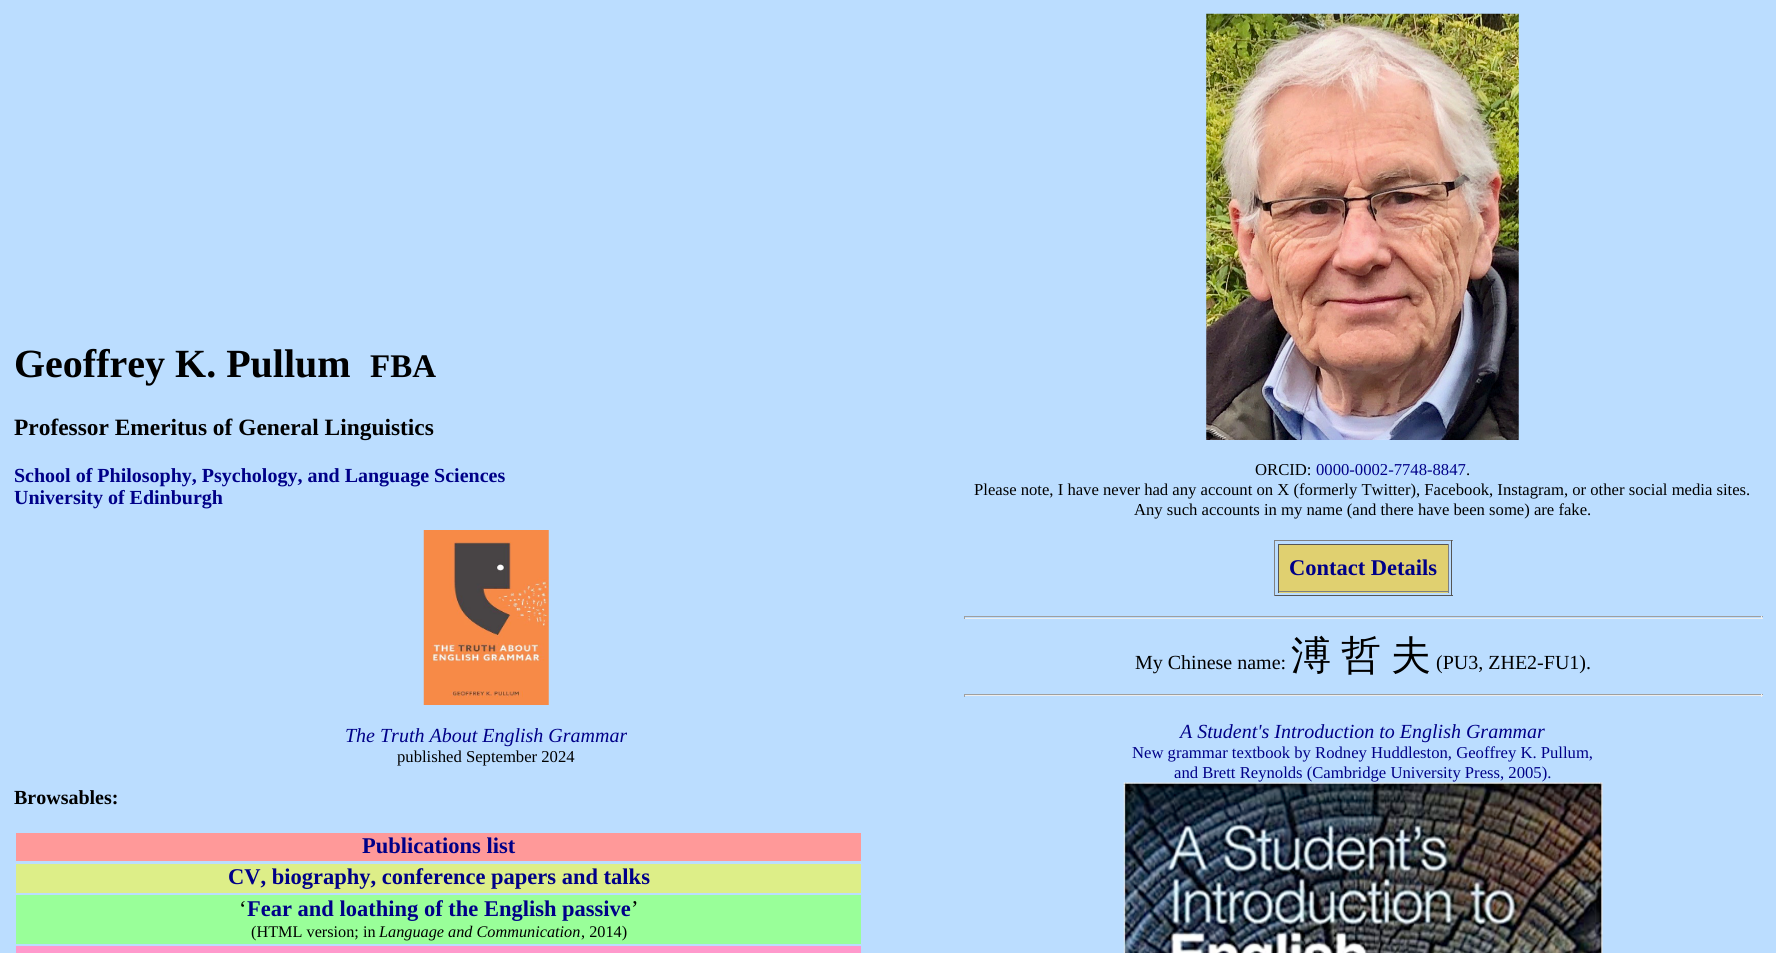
import math
import cairo

surface = cairo.ImageSurface(cairo.Format.RGB24, 1776, 953)
ctx = cairo.Context(surface)
options = cairo.FontOptions()
options.set_hint_metrics(cairo.HintMetrics.OFF)
options.set_hint_style(cairo.HintStyle.NONE)
ctx.set_font_options(options)
ctx.set_miter_limit(4)


def ink(r, g, b):
    ctx.set_source_rgb(r / 255, g / 255, b / 255)


def write(x, y, s, family, size, color, bold=False, italic=False):
    ctx.select_font_face(family, cairo.FontSlant.ITALIC if italic else cairo.FontSlant.NORMAL, cairo.FontWeight.BOLD if bold else cairo.FontWeight.NORMAL)
    ctx.set_font_size(size)
    ink(*color)
    ctx.move_to(x, y)
    ctx.show_text(s)


def write_spaced(x, y, s, letter, word):
    ctx.move_to(x, y)
    for ch in s:
        ctx.show_text(ch)
        ctx.rel_move_to(letter + word * (ch == ' '), 0)


def block(x, y, w, h, *color):
    ink(*color)
    ctx.rectangle(x, y, w, h)
    ctx.fill()


def paste(path, x, y, w, h):
    ctx.save()
    ctx.set_source_surface(cairo.ImageSurface.create_from_png(path), x, y)
    ctx.rectangle(x, y, w, h)
    ctx.fill()
    ctx.restore()


s1 = dict(family="Liberation Serif", size=40, color=(0, 0, 0), bold=True)
s2 = dict(family="Liberation Serif", size=33, color=(0, 0, 0), bold=True)
s3 = dict(family="Liberation Serif", size=23.4, color=(0, 0, 0), bold=True)
s4 = dict(family="Liberation Serif", size=20, color=(0, 0, 136), bold=True)
s5 = dict(family="Liberation Serif", size=20, color=(0, 0, 136), italic=True)
s6 = dict(family="Liberation Serif", size=16.65, color=(0, 0, 0))
s7 = dict(family="Liberation Serif", size=20, color=(0, 0, 0), bold=True)
s8 = dict(family="Liberation Serif", size=22.5, color=(0, 0, 136), bold=True)
s9 = dict(family="Liberation Serif", size=22.5, color=(0, 0, 0))
s10 = dict(family="Liberation Serif", size=16.25, color=(0, 0, 0))
s11 = dict(family="Liberation Serif", size=16.25, color=(0, 0, 0), italic=True)
s12 = dict(family="Liberation Serif", size=16.65, color=(0, 0, 136))
s13 = dict(family="Liberation Serif", size=20, color=(0, 0, 0))

ink(187, 221, 255)
ctx.paint()
write(14, 377, "Geoffrey K. Pullum", **s1)
write(370, 377, "FBA", **s2)
write(14, 435, "Professor Emeritus of General Linguistics", **s3)
write(14, 482, "School of Philosophy, Psychology, and Language Sciences", **s4)
write(14, 504, "University of Edinburgh", **s4)
paste("pic1.png", 423, 530, 126, 175)
write(345, 742, "The Truth About English Grammar", **s5)
write(397, 762, "published September 2024", **s6)
write(14, 804, "Browsables:", **s7)
block(16, 833, 845, 28, 255, 153, 153)
write(362, 853, "Publications list", **s8)
block(16, 864, 845, 29, 221, 238, 136)
write(228, 884, "CV, biography, conference papers and talks", **s8)
block(16, 895, 845, 49, 153, 255, 153)
write(239, 916, "‘", **s9)
write(247, 916, "Fear and loathing of the English passive", **s8)
write(631, 916, "’", **s9)
write(251, 937, "(HTML version; in", **s10)
write(379, 937, "Language and Communication", **s11)
write(581, 937, ", 2014)", **s10)
block(16, 946, 845, 7, 255, 153, 204)
paste("pic2.png", 1206, 13, 313, 427)
write(1255, 475, "ORCID:", **s6)
write(1316, 475, "0000-0002-7748-8847", **s12)
write(1466, 475, ".", **s6)
write(974, 495, "Please note, I have never had any account on X (formerly Twitter), Facebook, Instagram, or other social media sites.", **s6)
write(1134, 515, "Any such accounts in my name (and there have been some) are fake.", **s6)
block(1274, 540, 179, 1, 128, 128, 128)
block(1451, 540, 1, 56, 85, 85, 85)
block(1274, 595, 179, 1, 85, 85, 85)
block(1274, 540, 1, 56, 128, 128, 128)
block(1279, 545, 169, 48, 224, 208, 112)
block(1278, 544, 171, 1, 85, 85, 85)
block(1448, 544, 1, 49, 128, 128, 128)
block(1278, 591, 171, 1, 128, 128, 128)
block(1278, 544, 1, 49, 85, 85, 85)
write(1289, 575, "Contact Details", **s8)
block(964, 616, 799, 1, 159, 159, 159)
block(1761, 616, 1, 3, 238, 238, 238)
block(964, 618, 799, 1, 238, 238, 238)
block(964, 616, 1, 3, 159, 159, 159)
write(1135, 669, "My Chinese name:", **s13)
ctx.select_font_face("WenQuanYi Zen Hei Medium")
ctx.set_font_size(40)
write_spaced(1291, 669, "溥 哲 夫", 0, -2)
write(1436, 669, "(PU3, ZHE2-FU1).", **s13)
block(964, 694, 799, 1, 159, 159, 159)
block(1761, 694, 1, 3, 238, 238, 238)
block(964, 695, 799, 1, 238, 238, 238)
block(964, 694, 1, 3, 159, 159, 159)
write(1180, 738, "A Student's Introduction to English Grammar", **s5)
write(1132, 758, "New grammar textbook by Rodney Huddleston, Geoffrey K. Pullum,", **s12)
write(1174, 778, "and Brett Reynolds (Cambridge University Press, 2005).", **s12)
paste("pic3.png", 1123, 782, 480, 171)
surface.write_to_png("screenshot.png")
